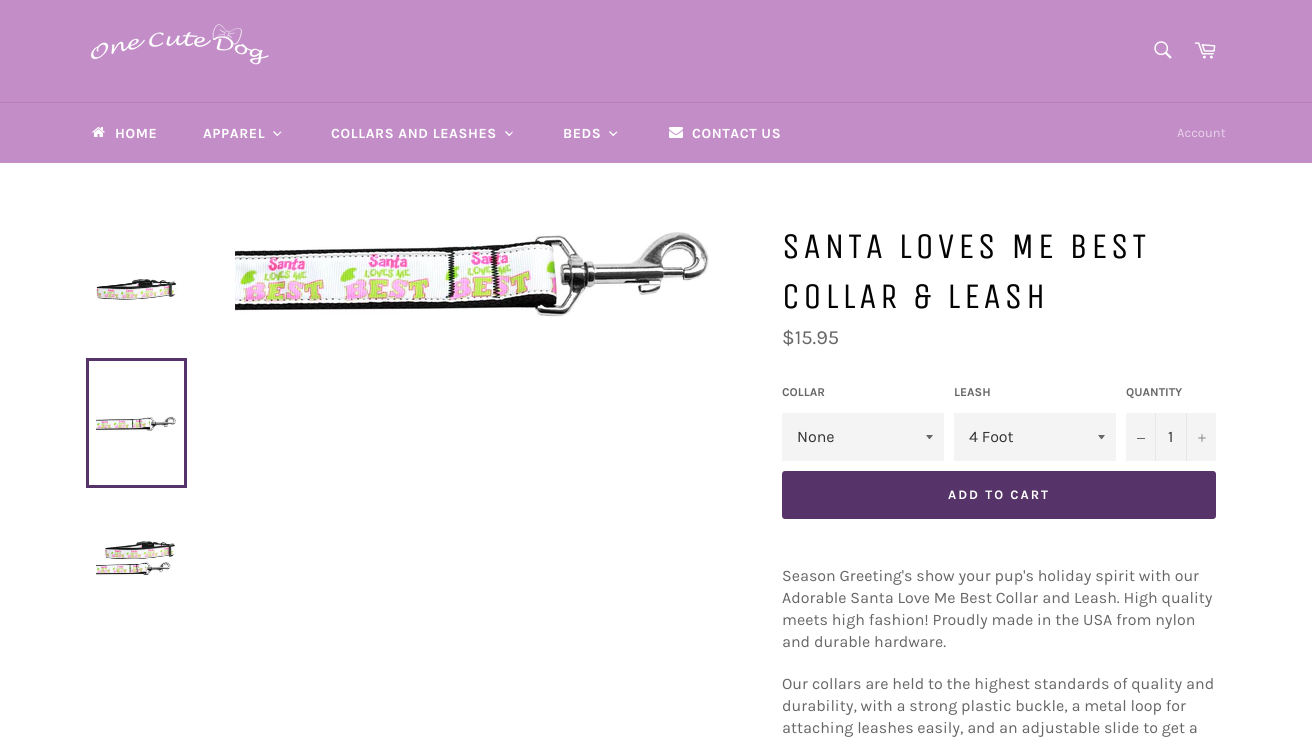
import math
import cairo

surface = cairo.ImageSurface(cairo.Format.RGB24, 1312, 747)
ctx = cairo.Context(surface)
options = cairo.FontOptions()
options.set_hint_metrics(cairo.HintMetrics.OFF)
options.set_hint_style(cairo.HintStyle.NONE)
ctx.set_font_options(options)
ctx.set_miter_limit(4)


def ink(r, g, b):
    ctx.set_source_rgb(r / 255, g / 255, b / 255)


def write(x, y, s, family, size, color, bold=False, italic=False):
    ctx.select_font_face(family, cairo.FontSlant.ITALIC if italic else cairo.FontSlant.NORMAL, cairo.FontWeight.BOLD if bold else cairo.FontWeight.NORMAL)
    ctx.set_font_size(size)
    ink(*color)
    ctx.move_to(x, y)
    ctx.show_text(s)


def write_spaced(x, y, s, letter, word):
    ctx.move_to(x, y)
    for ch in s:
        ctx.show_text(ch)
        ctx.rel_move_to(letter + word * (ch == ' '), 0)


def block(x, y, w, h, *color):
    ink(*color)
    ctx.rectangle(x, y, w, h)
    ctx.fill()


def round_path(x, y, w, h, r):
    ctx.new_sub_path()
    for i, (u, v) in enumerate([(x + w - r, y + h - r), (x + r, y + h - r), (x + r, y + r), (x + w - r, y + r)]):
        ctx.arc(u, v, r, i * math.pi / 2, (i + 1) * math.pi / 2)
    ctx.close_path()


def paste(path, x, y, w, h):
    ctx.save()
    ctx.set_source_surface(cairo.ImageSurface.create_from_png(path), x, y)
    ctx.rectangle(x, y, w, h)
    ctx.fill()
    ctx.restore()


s1 = dict(family="Karla", size=13, color=(231, 210, 233))
s2 = dict(family="Karla", size=20, color=(102, 102, 102))
s3 = dict(family="Karla", size=12, color=(102, 102, 102), bold=True)
s4 = dict(family="Karla", size=16, color=(51, 51, 51))
s5 = dict(family="Karla", size=16, color=(102, 102, 102))

ink(255, 255, 255)
ctx.paint()
block(0, 0, 1312, 102, 195, 142, 200)
paste("pic1.png", 90, 23, 179, 42)
paste("pic2.png", 1154, 41, 18, 18)
paste("pic3.png", 1194, 42, 22, 17)
block(0, 103, 1312, 60, 195, 142, 200)
block(0, 102, 1312, 1, 186, 125, 192)
paste("pic4.png", 92, 127, 13, 10)
ctx.select_font_face("Karla", cairo.FontSlant.NORMAL, cairo.FontWeight.BOLD)
ctx.set_font_size(14)
ink(255, 255, 255)
write_spaced(115, 138, "HOME", 0.6, 0)
write_spaced(203, 138, "APPAREL", 0.6, 0)
ctx.new_path()
ctx.move_to(280.5, 131.5)
ctx.line_to(281.5, 132)
ctx.line_to(277.5, 136)
ctx.line_to(277, 135)
ctx.close_path()
ctx.fill()
ctx.new_path()
ctx.move_to(274, 131)
ctx.line_to(278, 135)
ctx.line_to(277, 136)
ctx.line_to(273, 132)
ctx.close_path()
ctx.fill()
write_spaced(331, 138, "COLLARS AND LEASHES", 0.6, 0)
ctx.new_path()
ctx.move_to(512.5, 131.5)
ctx.line_to(513, 132)
ctx.line_to(509.5, 136)
ctx.line_to(508.5, 135)
ctx.close_path()
ctx.fill()
ctx.new_path()
ctx.move_to(506, 131)
ctx.line_to(510, 135)
ctx.line_to(509, 136)
ctx.line_to(505, 132)
ctx.close_path()
ctx.fill()
write_spaced(563, 138, "BEDS", 0.6, 0)
ctx.new_path()
ctx.move_to(616.5, 131.5)
ctx.line_to(617.5, 132)
ctx.line_to(613.5, 136)
ctx.line_to(612.5, 135)
ctx.close_path()
ctx.fill()
ctx.new_path()
ctx.move_to(610, 131)
ctx.line_to(614, 135)
ctx.line_to(613, 136)
ctx.line_to(609, 132)
ctx.close_path()
ctx.fill()
paste("pic5.png", 669, 127, 14, 11)
write_spaced(692, 138, "CONTACT US", 0.6, 0)
write(1177, 137, "Account", **s1)
paste("pic6.png", 96, 278, 81, 22)
paste("pic7.png", 96, 416, 80, 15)
ctx.rectangle(87.5, 359.5, 98, 127)
ink(86, 52, 106)
ctx.set_line_width(3)
ctx.stroke()
paste("pic8.png", 96, 541, 80, 35)
paste("pic9.png", 235, 232, 474, 85)
ctx.select_font_face("Unica One")
ctx.set_font_size(36)
ink(3, 3, 3)
write_spaced(782, 258, "SANTA LOVES ME BEST", 3.6, 0)
write_spaced(782, 308, "COLLAR & LEASH", 3.6, 0)
write(782, 344, "$15.95", **s2)
write(782, 396, "COLLAR", **s3)
block(782, 413, 162, 48, 244, 244, 244)
ink(102, 102, 102)
ctx.new_path()
ctx.move_to(926, 435)
ctx.curve_to(930.5, 440.5, 928.5, 440.5, 933, 435)
ctx.close_path()
ctx.fill()
write(797, 442, "None", **s4)
write(954, 396, "LEASH", **s3)
block(954, 413, 162, 48, 244, 244, 244)
ink(102, 102, 102)
ctx.new_path()
ctx.move_to(1098, 435)
ctx.curve_to(1102.5, 440.5, 1100.5, 440.5, 1105, 435)
ctx.close_path()
ctx.fill()
write(969, 442, "4 Foot", **s4)
write(1126, 396, "QUANTITY", **s3)
block(1126, 413, 90, 48, 244, 244, 244)
block(1155, 413, 1, 48, 231, 231, 231)
block(1137, 438, 8, 1, 102, 102, 102)
write(1168, 442, "1", **s4)
block(1186, 413, 1, 48, 231, 231, 231)
paste("pic10.png", 1198, 434, 8, 8)
ink(86, 52, 106)
round_path(782, 471, 434, 48, 3)
ctx.fill()
ctx.select_font_face("Karla", cairo.FontSlant.NORMAL, cairo.FontWeight.BOLD)
ctx.set_font_size(13)
ink(255, 255, 255)
write_spaced(948, 499, "ADD TO CART", 2, 0)
write(782, 581, "Season Greeting's show your pup's holiday spirit with our", **s5)
write(782, 603, "Adorable Santa Love Me Best Collar and Leash. High quality", **s5)
write(782, 625, "meets high fashion! Proudly made in the USA from nylon", **s5)
write(782, 647, "and durable hardware.", **s5)
write(782, 689, "Our collars are held to the highest standards of quality and", **s5)
write(782, 711, "durability, with a strong plastic buckle, a metal loop for", **s5)
write(782, 733, "attaching leashes easily, and an adjustable slide to get a", **s5)
surface.write_to_png("screenshot.png")
